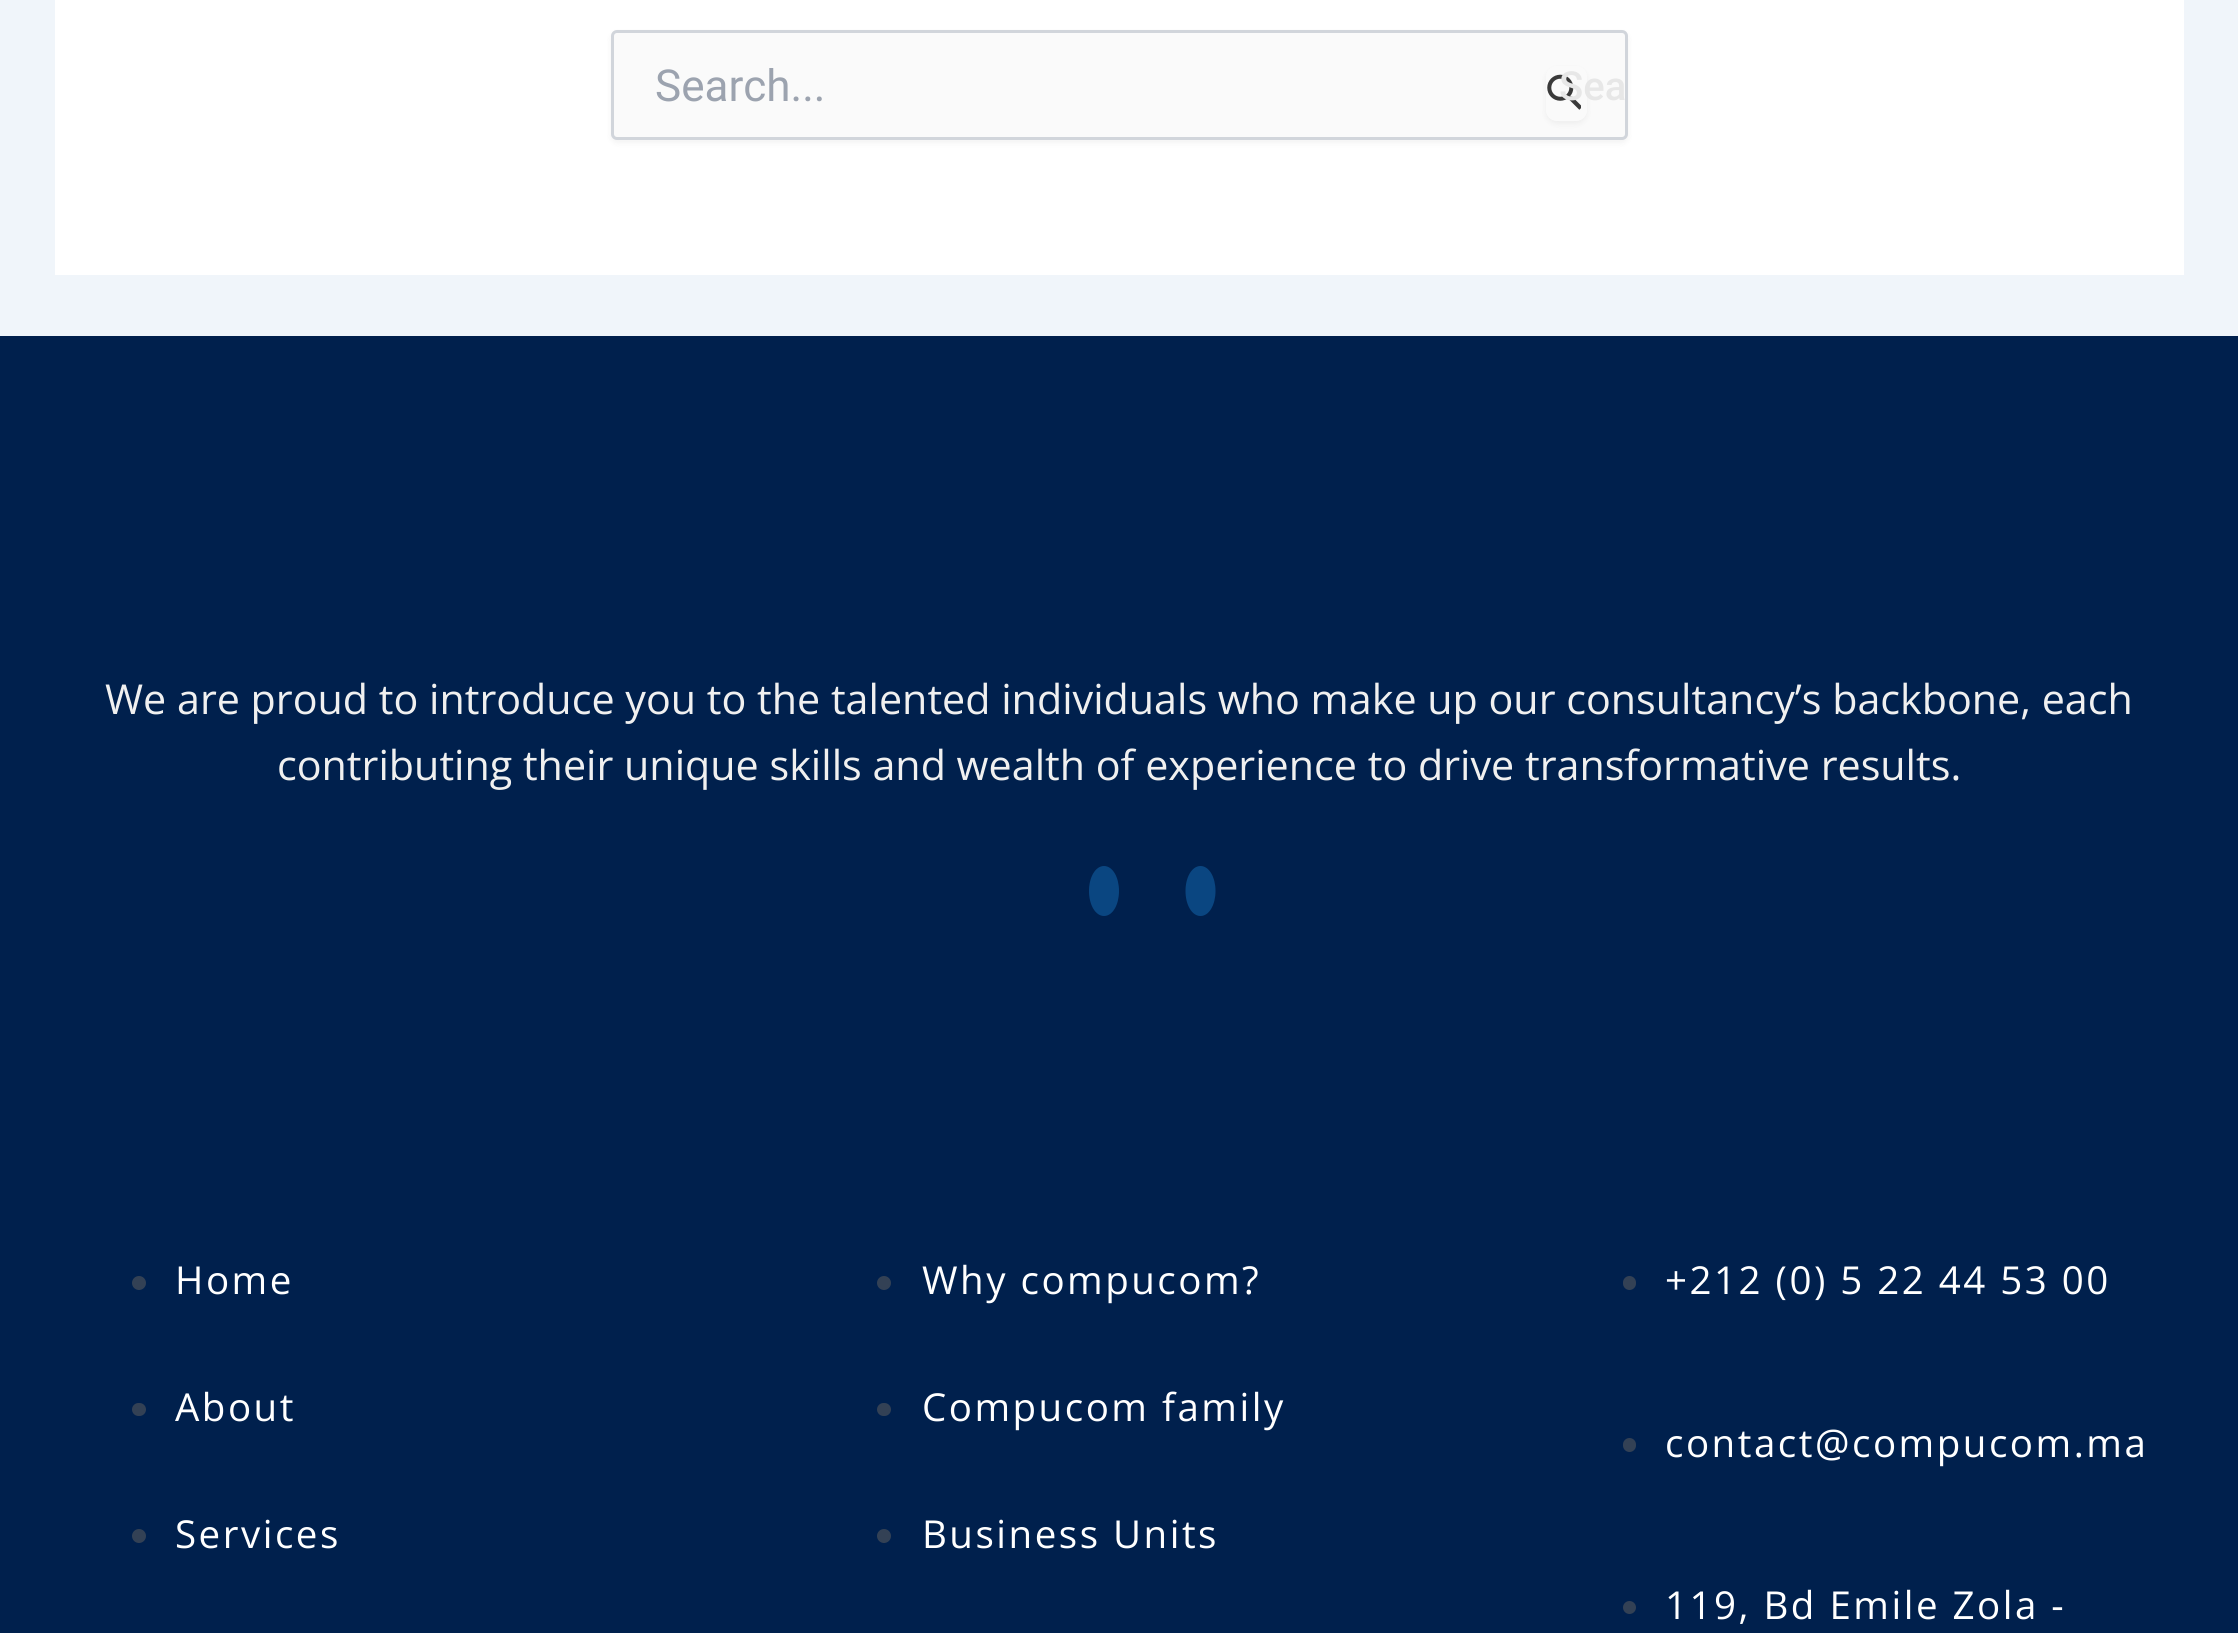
import math
import cairo

surface = cairo.ImageSurface(cairo.Format.RGB24, 2238, 1633)
ctx = cairo.Context(surface)
options = cairo.FontOptions()
options.set_hint_metrics(cairo.HintMetrics.OFF)
options.set_hint_style(cairo.HintStyle.NONE)
ctx.set_font_options(options)
ctx.set_miter_limit(4)


def ink(r, g, b):
    ctx.set_source_rgb(r / 255, g / 255, b / 255)


def write(x, y, s, family, size, color, bold=False, italic=False):
    ctx.select_font_face(family, cairo.FontSlant.ITALIC if italic else cairo.FontSlant.NORMAL, cairo.FontWeight.BOLD if bold else cairo.FontWeight.NORMAL)
    ctx.set_font_size(size)
    ink(*color)
    ctx.move_to(x, y)
    ctx.show_text(s)


def write_spaced(x, y, s, letter, word):
    ctx.move_to(x, y)
    for ch in s:
        ctx.show_text(ch)
        ctx.rel_move_to(letter + word * (ch == ' '), 0)


def block(x, y, w, h, *color):
    ink(*color)
    ctx.rectangle(x, y, w, h)
    ctx.fill()


def round_path(x, y, w, h, r):
    ctx.new_sub_path()
    for i, (u, v) in enumerate([(x + w - r, y + h - r), (x + r, y + h - r), (x + r, y + r), (x + w - r, y + r)]):
        ctx.arc(u, v, r, i * math.pi / 2, (i + 1) * math.pi / 2)
    ctx.close_path()


def blur_box(x, y, w, h, r, blur, alpha):
    ctx.push_group_with_content(cairo.Content.ALPHA)
    ctx.set_operator(cairo.Operator.SOURCE)
    for i in range(15, -16, -2):
        e = blur * i / 6
        if min(w, h) + 2 * e > 0:
            ctx.set_source_rgba(0, 0, 0, alpha * math.erfc((i - 1) / 8.5) / 2)
            round_path(x - e, y - e, w + 2 * e, h + 2 * e, max(0, min(r + e + blur * .6, min(w, h) / 2 + e)))
            ctx.fill()
    ctx.mask(ctx.pop_group())


def paste(path, x, y, w, h):
    ctx.save()
    ctx.set_source_surface(cairo.ImageSurface.create_from_png(path), x, y)
    ctx.rectangle(x, y, w, h)
    ctx.fill()
    ctx.restore()


s1 = dict(family="Roboto", size=44, color=(156, 163, 175))
s2 = dict(family="Roboto Medium", size=40, color=(231, 231, 231))
s3 = dict(family="Open Sans", size=41.25, color=(240, 240, 240))

ink(240, 245, 250)
ctx.paint()
block(55, 0, 2129, 275, 255, 255, 255)
ink(0, 0, 0)
blur_box(611, 33, 1017, 110, 6, 3, 0.05)
ink(250, 250, 250)
round_path(612.5, 31.5, 1014, 107, 4.5)
ctx.fill_preserve()
ink(209, 213, 219)
ctx.set_line_width(3)
ctx.stroke()
write(655, 101, "Search...", **s1)
ctx.save()
ctx.set_fill_rule(cairo.FillRule.EVEN_ODD)
ctx.new_path()
ctx.move_to(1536, 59)
ctx.line_to(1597, 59)
ctx.line_to(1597, 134)
ctx.line_to(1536, 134)
ctx.close_path()
ctx.move_to(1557, 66)
ctx.line_to(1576, 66)
ctx.curve_to(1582, 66, 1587, 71, 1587, 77)
ctx.line_to(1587, 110)
ctx.curve_to(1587, 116, 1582, 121, 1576, 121)
ctx.line_to(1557, 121)
ctx.curve_to(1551, 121, 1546, 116, 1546, 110)
ctx.line_to(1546, 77)
ctx.curve_to(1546, 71, 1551, 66, 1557, 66)
ctx.close_path()
ctx.clip()
ink(0, 0, 0)
blur_box(1546, 69, 41, 55, 11, 3, 0.05)
ctx.restore()
paste("pic1.png", 1547, 74, 34, 36)
write(1559, 100, "Sea", **s2)
block(0, 336, 2238, 1297, 0, 32, 77)
write(105, 714, "We are proud to introduce you to the talented individuals who make up our consultancy’s backbone, each", **s3)
write(277, 780, "contributing their unique skills and wealth of experience to drive transformative results.", **s3)
ink(10, 70, 129)
ctx.new_path()
ctx.move_to(1104, 866)
ctx.curve_to(1112.5, 866, 1119, 877, 1119, 891)
ctx.curve_to(1119, 905, 1112.5, 916, 1104, 916)
ctx.curve_to(1095.5, 916, 1089, 905, 1089, 891)
ctx.curve_to(1089, 877, 1095.5, 866, 1104, 866)
ctx.close_path()
ctx.fill()
ctx.new_path()
ctx.move_to(1200.5, 866)
ctx.curve_to(1209, 866, 1215.5, 877, 1215.5, 891)
ctx.curve_to(1215.5, 905, 1209, 916, 1200.5, 916)
ctx.curve_to(1192, 916, 1185.5, 905, 1185.5, 891)
ctx.curve_to(1185.5, 877, 1192, 866, 1200.5, 866)
ctx.close_path()
ctx.fill()
ink(51, 65, 85)
ctx.arc(139, 1283, 7, 0, 2 * math.pi)
ctx.fill()
ctx.set_font_size(38.5)
ink(255, 255, 255)
write_spaced(175, 1294, "Home", 2.5, 0)
ink(51, 65, 85)
round_path(132, 1403, 14, 13, 6.5)
ctx.fill()
ink(255, 255, 255)
write_spaced(175, 1421, "About", 2.5, 0)
ink(51, 65, 85)
ctx.new_path()
ctx.arc(139, 1536, 7, 0, 2 * math.pi)
ctx.fill()
ink(255, 255, 255)
write_spaced(175, 1548, "Services", 2.5, 0)
ink(51, 65, 85)
ctx.new_path()
ctx.arc(884, 1283, 7, 0, 2 * math.pi)
ctx.fill()
ink(255, 255, 255)
write_spaced(922, 1294, "Why compucom?", 2.5, 0)
ink(51, 65, 85)
round_path(877, 1403, 14, 13, 6.5)
ctx.fill()
ink(255, 255, 255)
write_spaced(922, 1421, "Compucom family", 2.5, 0)
ink(51, 65, 85)
ctx.new_path()
ctx.arc(884, 1536, 7, 0, 2 * math.pi)
ctx.fill()
ink(255, 255, 255)
write_spaced(922, 1548, "Business Units", 2.5, 0)
ink(51, 65, 85)
round_path(1623, 1276, 13, 14, 6.5)
ctx.fill()
ink(255, 255, 255)
write_spaced(1665, 1294, "+212 (0) 5 22 44 53 00", 2.5, 0)
ink(51, 65, 85)
round_path(1623, 1438, 13, 14, 6.5)
ctx.fill()
ink(255, 255, 255)
write_spaced(1665, 1457, "contact@compucom.ma", 2.5, 0)
ink(51, 65, 85)
ctx.new_path()
ctx.arc(1629.5, 1607.5, 6.5, 0, 2 * math.pi)
ctx.fill()
ink(255, 255, 255)
write_spaced(1665, 1619, "119, Bd Emile Zola -", 2.5, 0)
surface.write_to_png("screenshot.png")
